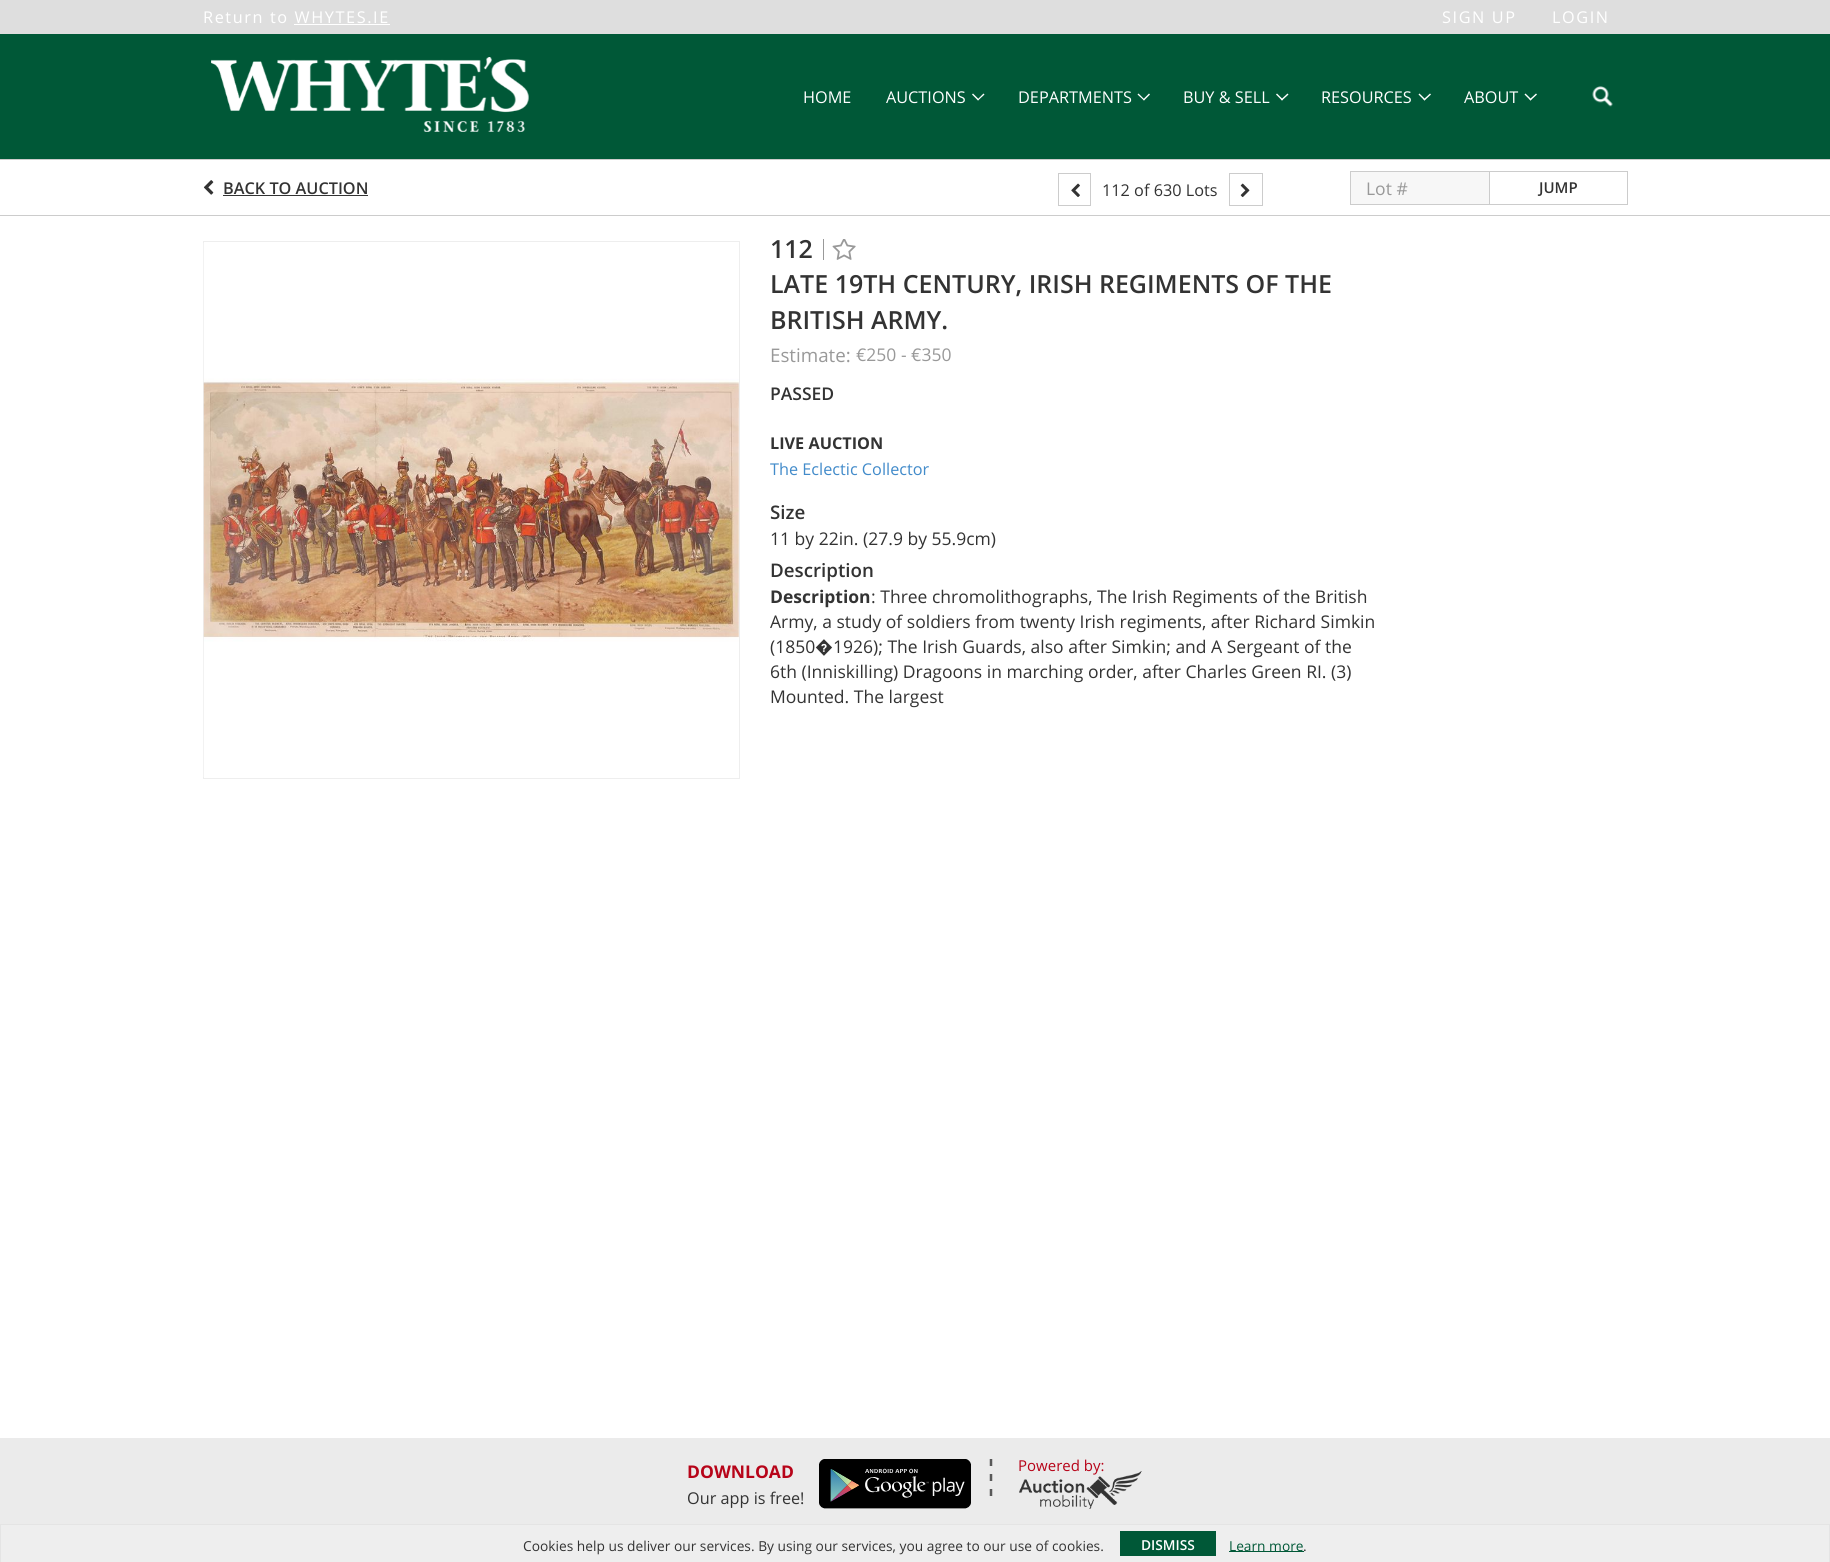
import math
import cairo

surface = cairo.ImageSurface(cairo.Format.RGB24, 1830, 1562)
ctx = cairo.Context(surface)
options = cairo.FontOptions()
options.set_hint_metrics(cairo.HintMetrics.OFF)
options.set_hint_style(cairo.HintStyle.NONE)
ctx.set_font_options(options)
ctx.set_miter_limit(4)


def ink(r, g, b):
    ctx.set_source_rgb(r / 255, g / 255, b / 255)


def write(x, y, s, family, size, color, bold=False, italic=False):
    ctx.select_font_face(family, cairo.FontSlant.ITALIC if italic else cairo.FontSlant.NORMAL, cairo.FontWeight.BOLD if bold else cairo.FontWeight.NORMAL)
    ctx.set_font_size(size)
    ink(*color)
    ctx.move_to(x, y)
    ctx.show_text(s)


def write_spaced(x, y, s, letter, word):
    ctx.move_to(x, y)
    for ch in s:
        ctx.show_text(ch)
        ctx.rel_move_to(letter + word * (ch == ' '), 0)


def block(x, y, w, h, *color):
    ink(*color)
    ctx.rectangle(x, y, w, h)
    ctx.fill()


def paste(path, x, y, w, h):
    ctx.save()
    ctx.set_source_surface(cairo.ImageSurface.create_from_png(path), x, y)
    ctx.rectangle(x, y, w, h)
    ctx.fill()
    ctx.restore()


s1 = dict(family="Open Sans", size=16.25, color=(255, 255, 255))
s2 = dict(family="Open Sans SemiBold", size=16.25, color=(51, 51, 51))
s3 = dict(family="Open Sans", size=16.25, color=(51, 51, 51))
s4 = dict(family="Open Sans", size=17.5, color=(153, 153, 153))
s5 = dict(family="Open Sans SemiBold", size=15, color=(51, 51, 51))
s6 = dict(family="Open Sans SemiBold", size=25, color=(51, 51, 51))
s7 = dict(family="Open Sans", size=18.75, color=(153, 153, 153))
s8 = dict(family="Open Sans SemiBold", size=17.5, color=(51, 51, 51))
s9 = dict(family="Open Sans", size=16.25, color=(51, 51, 51), bold=True)
s10 = dict(family="Open Sans", size=16.25, color=(66, 139, 202))
s11 = dict(family="Open Sans SemiBold", size=18.75, color=(51, 51, 51))
s12 = dict(family="Open Sans", size=17.5, color=(51, 51, 51))
s13 = dict(family="Open Sans", size=17.5, color=(51, 51, 51), bold=True)
s14 = dict(family="Roboto", size=17.5, color=(51, 51, 51))
s15 = dict(family="Open Sans", size=17.5, color=(183, 4, 25), bold=True)
s16 = dict(family="Open Sans", size=15, color=(183, 4, 25))
s17 = dict(family="Open Sans", size=13.75, color=(51, 51, 51))
s18 = dict(family="Open Sans SemiBold", size=13.75, color=(255, 255, 255))
s19 = dict(family="Open Sans", size=13.75, color=(0, 88, 55))

ink(255, 255, 255)
ctx.paint()
block(0, 0, 1830, 34, 222, 222, 222)
ctx.select_font_face("Open Sans")
ctx.set_font_size(16.25)
ink(255, 255, 255)
write_spaced(203, 23, "Return to WHYTES.IE", 1.6, 0)
block(294, 24, 96, 1, 255, 255, 255)
write_spaced(1442, 23, "SIGN UP", 1.6, 0)
write_spaced(1552, 23, "LOGIN", 1.6, 0)
block(0, 34, 1830, 125, 0, 88, 55)
block(0, 159, 1830, 1, 204, 204, 204)
paste("pic1.png", 211, 57, 318, 75)
write(803, 103, "HOME", **s1)
write(886, 103, "AUCTIONS", **s1)
ctx.new_path()
ctx.move_to(983.5, 93.5)
ctx.line_to(984.5, 94.5)
ctx.line_to(978, 100.5)
ctx.line_to(977.5, 99.5)
ctx.close_path()
ctx.fill()
ctx.new_path()
ctx.move_to(973, 93.5)
ctx.line_to(979, 99.5)
ctx.line_to(978, 100.5)
ctx.line_to(972, 94.5)
ctx.close_path()
ctx.fill()
write(1018, 103, "DEPARTMENTS", **s1)
ctx.new_path()
ctx.move_to(1149, 93.5)
ctx.line_to(1150, 94.5)
ctx.line_to(1144, 100.5)
ctx.line_to(1143, 99.5)
ctx.close_path()
ctx.fill()
ctx.new_path()
ctx.move_to(1138.5, 93.5)
ctx.line_to(1144.5, 99.5)
ctx.line_to(1144, 100.5)
ctx.line_to(1137.5, 94.5)
ctx.close_path()
ctx.fill()
write(1183, 103, "BUY & SELL", **s1)
ctx.new_path()
ctx.move_to(1287.5, 93.5)
ctx.line_to(1288.5, 94.5)
ctx.line_to(1282, 100.5)
ctx.line_to(1281, 99.5)
ctx.close_path()
ctx.fill()
ctx.new_path()
ctx.move_to(1277, 93.5)
ctx.line_to(1283, 99.5)
ctx.line_to(1282, 100.5)
ctx.line_to(1276, 94.5)
ctx.close_path()
ctx.fill()
write(1321, 103, "RESOURCES", **s1)
ctx.new_path()
ctx.move_to(1430, 93.5)
ctx.line_to(1431, 94.5)
ctx.line_to(1424.5, 100.5)
ctx.line_to(1423.5, 99.5)
ctx.close_path()
ctx.fill()
ctx.new_path()
ctx.move_to(1419.5, 93.5)
ctx.line_to(1425.5, 99.5)
ctx.line_to(1424.5, 100.5)
ctx.line_to(1418.5, 94.5)
ctx.close_path()
ctx.fill()
write(1464, 103, "ABOUT", **s1)
ctx.new_path()
ctx.move_to(1536, 93.5)
ctx.line_to(1537, 94.5)
ctx.line_to(1530.5, 100.5)
ctx.line_to(1529.5, 99.5)
ctx.close_path()
ctx.fill()
ctx.new_path()
ctx.move_to(1525.5, 93.5)
ctx.line_to(1531.5, 99.5)
ctx.line_to(1530.5, 100.5)
ctx.line_to(1524.5, 94.5)
ctx.close_path()
ctx.fill()
paste("pic2.png", 1592, 86, 21, 21)
paste("pic3.png", 203, 180, 11, 15)
write(223, 194, "BACK TO AUCTION", **s2)
block(223, 195, 145, 1, 51, 51, 51)
ctx.rectangle(1058.5, 173.5, 32, 32)
ink(204, 204, 204)
ctx.set_line_width(1)
ctx.stroke()
paste("pic4.png", 1071, 183, 9, 14)
write(1102, 196, "112 of 630 Lots", **s3)
ctx.rectangle(1229.5, 173.5, 33, 32)
ink(204, 204, 204)
ctx.stroke()
paste("pic5.png", 1240, 183, 10, 15)
block(1351, 172, 138, 32, 247, 247, 247)
block(1350, 171, 139, 1, 204, 204, 204)
block(1350, 204, 139, 1, 204, 204, 204)
block(1350, 171, 1, 34, 204, 204, 204)
write(1366, 195, "Lot #", **s4)
ctx.rectangle(1489.5, 171.5, 138, 33)
ink(204, 204, 204)
ctx.stroke()
write(1539, 193, "JUMP", **s5)
block(0, 215, 1830, 1, 204, 204, 204)
ctx.rectangle(203.5, 241.5, 536, 537)
ink(238, 238, 238)
ctx.stroke()
paste("pic6.png", 203, 243, 536, 534)
write(770, 258, "112", **s6)
block(823, 239, 1, 21, 153, 153, 153)
paste("pic7.png", 832, 239, 24, 21)
write(770, 293, "LATE 19TH CENTURY, IRISH REGIMENTS OF THE", **s6)
write(770, 329, "BRITISH ARMY.", **s6)
write(770, 362, "Estimate:", **s7)
write(856, 361, "€250 - €350", **s4)
write(770, 400, "PASSED", **s8)
write(770, 449, "LIVE AUCTION", **s9)
write(770, 475, "The Eclectic Collector", **s10)
write(770, 519, "Size", **s11)
write(770, 545, "11 by 22in. (27.9 by 55.9cm)", **s12)
write(770, 577, "Description", **s11)
write(770, 603, "Description", **s13)
write(871, 603, ": Three chromolithographs, The Irish Regiments of the British", **s12)
write(770, 628, "Army, a study of soldiers from twenty Irish regiments, after Richard Simkin", **s12)
write(770, 653, "(1850", **s12)
write(815, 653, "�", **s14)
write(833, 653, "1926); The Irish Guards, also after Simkin; and A Sergeant of the", **s12)
write(770, 678, "6th (Inniskilling) Dragoons in marching order, after Charles Green RI. (3)", **s12)
write(770, 703, "Mounted. The largest", **s12)
block(0, 1438, 1830, 86, 235, 235, 235)
write(687, 1478, "DOWNLOAD", **s15)
write(687, 1504, "Our app is free!", **s3)
paste("pic8.png", 819, 1459, 152, 50)
ctx.new_path()
ctx.move_to(991, 1459)
ctx.line_to(991, 1466)
ctx.move_to(991, 1474)
ctx.line_to(991, 1481)
ctx.move_to(991, 1489)
ctx.line_to(991, 1496)
ink(89, 89, 89)
ctx.set_line_width(2.5)
ctx.stroke()
write(1018, 1471, "Powered by:", **s16)
paste("pic9.png", 1019, 1471, 123, 38)
block(1, 1525, 1828, 37, 238, 238, 238)
block(0, 1524, 1830, 1, 228, 228, 228)
block(1829, 1524, 1, 38, 228, 228, 228)
block(0, 1524, 1, 38, 228, 228, 228)
write(523, 1551, "Cookies help us deliver our services. By using our services, you agree to our use of cookies.", **s17)
block(1120, 1531, 96, 25, 0, 88, 55)
write(1141, 1550, "DISMISS", **s18)
block(1229, 1551, 75, 1, 0, 88, 55)
write(1229, 1551, "Learn more", **s19)
write(1303, 1551, ".", **s17)
surface.write_to_png("screenshot.png")
